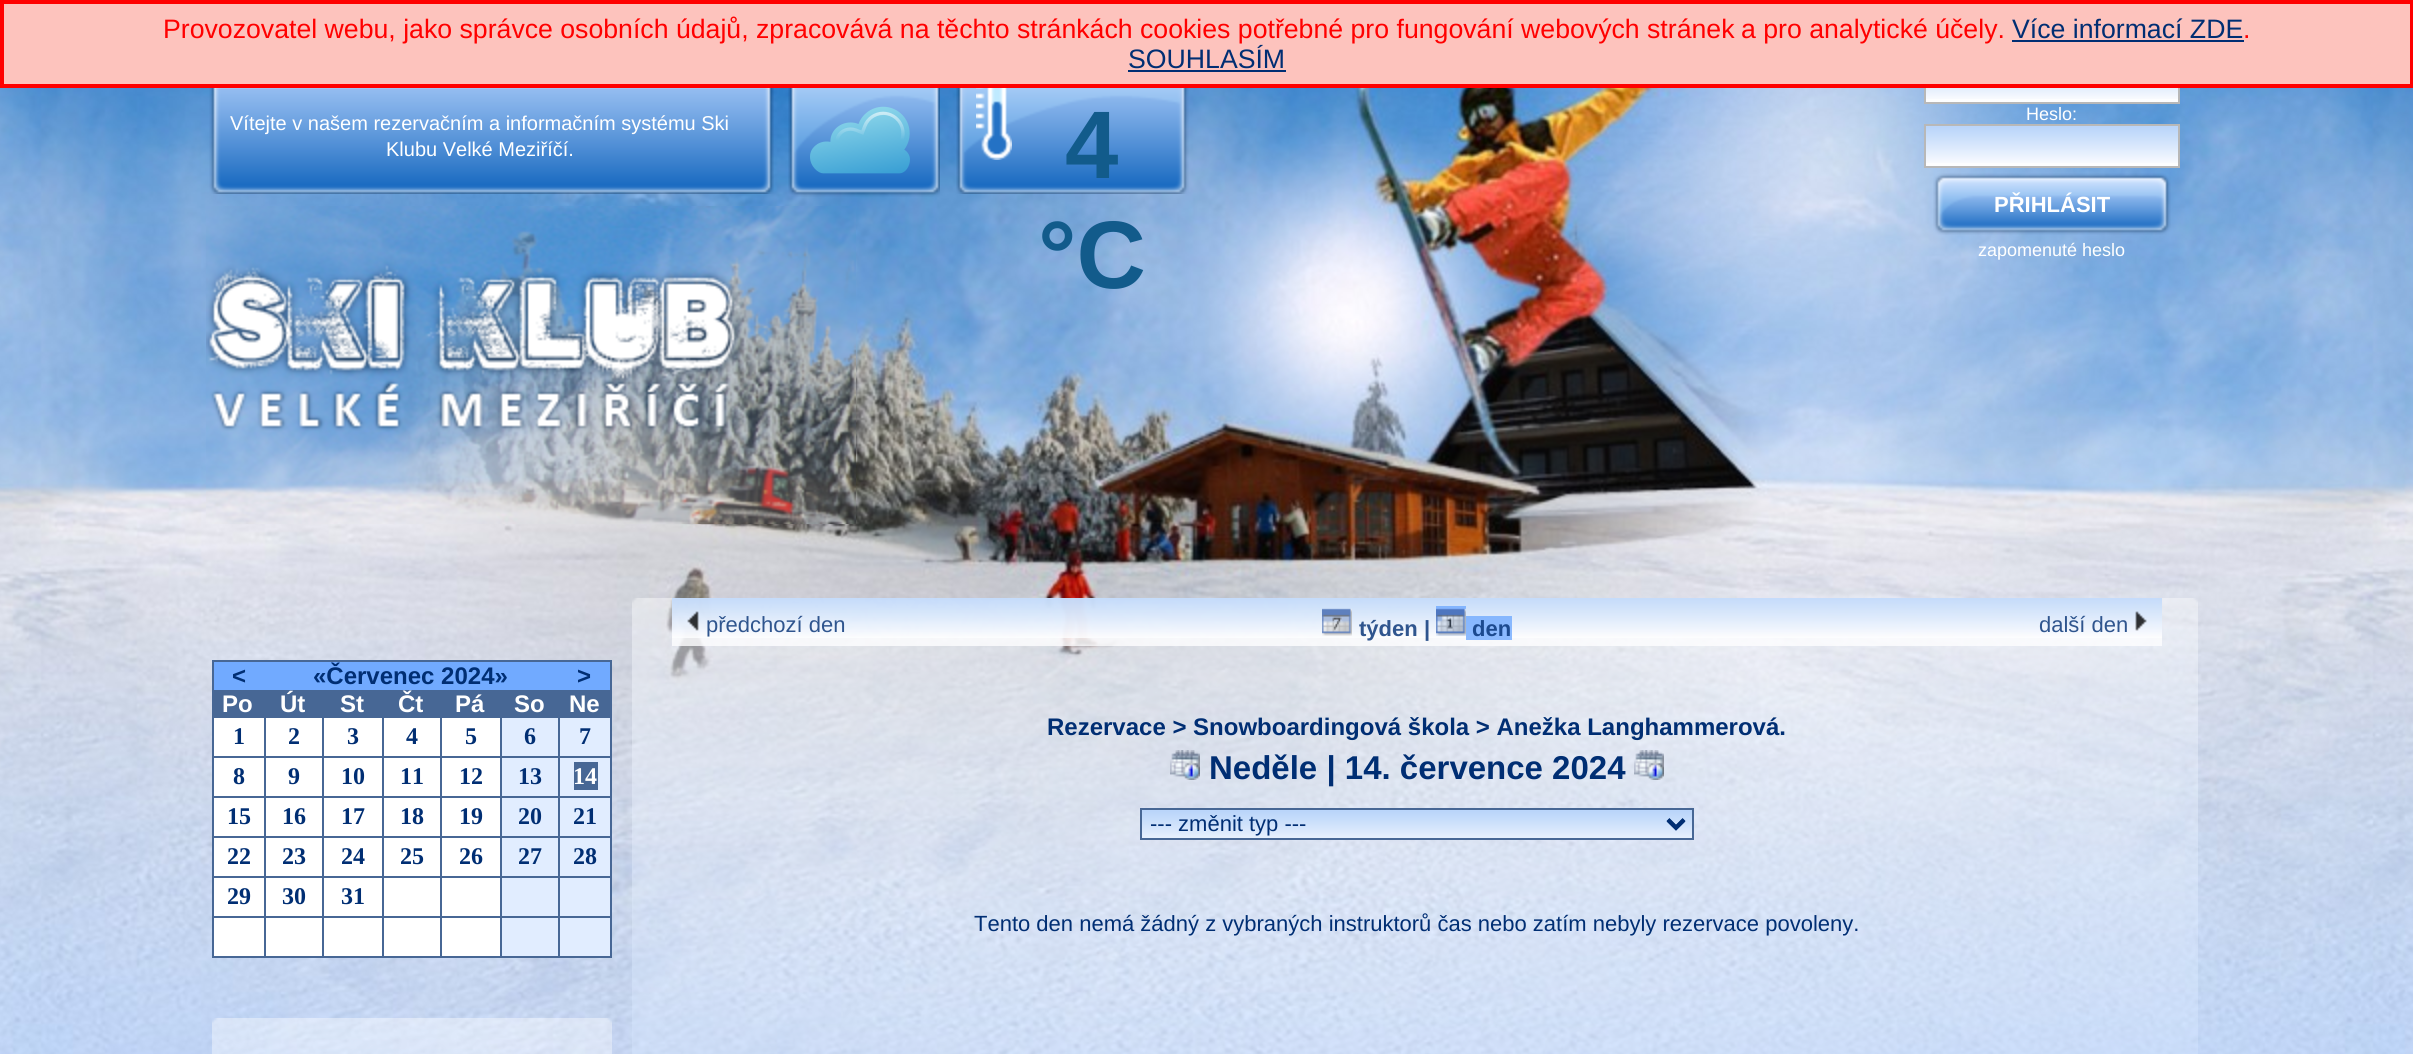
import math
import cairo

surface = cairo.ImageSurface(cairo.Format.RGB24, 2413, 1054)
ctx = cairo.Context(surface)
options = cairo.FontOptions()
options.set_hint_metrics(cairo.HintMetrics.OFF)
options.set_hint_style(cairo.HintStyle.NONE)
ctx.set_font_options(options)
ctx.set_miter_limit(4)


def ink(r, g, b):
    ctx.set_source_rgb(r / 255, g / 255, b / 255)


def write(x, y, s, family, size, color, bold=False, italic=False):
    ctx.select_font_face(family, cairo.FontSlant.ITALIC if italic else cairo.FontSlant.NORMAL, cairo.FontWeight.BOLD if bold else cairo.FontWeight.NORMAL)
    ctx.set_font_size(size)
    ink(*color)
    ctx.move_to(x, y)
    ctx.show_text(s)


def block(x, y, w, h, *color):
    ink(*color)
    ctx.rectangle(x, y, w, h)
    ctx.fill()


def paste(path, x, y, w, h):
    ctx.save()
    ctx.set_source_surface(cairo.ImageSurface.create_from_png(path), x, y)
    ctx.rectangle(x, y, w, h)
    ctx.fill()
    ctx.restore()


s1 = dict(family="Liberation Sans", size=26.67, color=(255, 0, 0))
s2 = dict(family="Liberation Sans", size=26.67, color=(0, 46, 115))
s3 = dict(family="Liberation Sans", size=20, color=(255, 255, 255))
s4 = dict(family="Liberation Sans", size=96, color=(18, 91, 139), bold=True)
s5 = dict(family="Liberation Sans", size=18, color=(255, 255, 255))
s6 = dict(family="Liberation Sans", size=22, color=(255, 255, 255), bold=True)
s7 = dict(family="Liberation Sans", size=24, color=(0, 46, 115), bold=True)
s8 = dict(family="Liberation Sans", size=24, color=(255, 255, 255), bold=True)
s9 = dict(family="Liberation Serif", size=24, color=(0, 46, 115), bold=True)
s10 = dict(family="Liberation Serif", size=24, color=(255, 255, 255), bold=True)
s11 = dict(family="Liberation Sans", size=22, color=(47, 85, 142))
s12 = dict(family="Liberation Sans", size=22, color=(47, 85, 142), bold=True)
s13 = dict(family="Liberation Sans", size=22, color=(28, 74, 143), bold=True)
s14 = dict(family="Liberation Sans", size=33, color=(0, 46, 115), bold=True)
s15 = dict(family="Liberation Sans", size=22, color=(0, 46, 115))

ink(255, 255, 255)
ctx.paint()
paste("pic1.png", 0, 88, 2413, 966)
block(1926, 99, 252, 3, 253, 254, 255)
paste("pic7.png", 1926, 88, 252, 11)
ctx.rectangle(1925, 61, 254, 42)
ink(184, 184, 184)
ctx.stroke()
ink(253, 195, 189)
ctx.rectangle(2, 2, 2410, 84)
ctx.fill_preserve()
ink(255, 0, 0)
ctx.set_line_width(4)
ctx.stroke()
write(163, 38, "Provozovatel webu, jako správce osobních údajů, zpracovává na těchto stránkách cookies potřebné pro fungování webových stránek", **s1)
write(1741, 38, "a pro analytické účely.", **s1)
write(2012, 38, "Více informací ZDE", **s2)
block(2012, 40, 232, 2, 0, 46, 115)
write(2243, 38, ".", **s1)
write(1128, 68, "SOUHLASÍM", **s2)
block(1128, 70, 158, 2, 0, 46, 115)
paste("pic2.png", 209, 88, 565, 106)
write(230, 130, "Vítejte v našem rezervačním a informačním systému Ski", **s3)
write(386, 156, "Klubu Velké Meziříčí.", **s3)
paste("pic3.png", 788, 88, 152, 109)
paste("pic4.png", 810, 106, 100, 68)
paste("pic5.png", 956, 88, 233, 106)
paste("pic6.png", 976, 88, 36, 72)
write(1065, 178, "4", **s4)
write(1038, 288, "°C", **s4)
write(2026, 120, "Heslo:", **s5)
block(1926, 163, 252, 3, 253, 254, 255)
paste("pic8.png", 1926, 126, 252, 37)
ctx.rectangle(1925, 125, 254, 42)
ink(184, 184, 184)
ctx.set_line_width(2)
ctx.stroke()
paste("pic9.png", 1933, 173, 238, 62)
write(1994, 212, "PŘIHLÁSIT", **s6)
write(1978, 256, "zapomenuté heslo", **s5)
paste("pic10.png", 206, 206, 650, 318)
block(212, 660, 400, 2, 71, 103, 149)
block(610, 660, 2, 298, 71, 103, 149)
block(214, 662, 396, 28, 113, 170, 255)
block(212, 662, 2, 28, 71, 103, 149)
write(232, 684, "<", **s7)
write(313, 684, "«Červenec 2024»", **s7)
write(577, 684, ">", **s7)
block(212, 690, 398, 28, 71, 103, 149)
write(222, 712, "Po", **s8)
write(280, 712, "Út", **s8)
write(340, 712, "St", **s8)
write(398, 712, "Čt", **s8)
write(455, 712, "Pá", **s8)
write(514, 712, "So", **s8)
write(569, 712, "Ne", **s8)
block(214, 718, 286, 38, 255, 255, 255)
block(212, 756, 398, 2, 71, 103, 149)
block(212, 718, 2, 40, 71, 103, 149)
write(233, 744, "1", **s9)
block(264, 718, 2, 40, 71, 103, 149)
write(288, 744, "2", **s9)
block(322, 718, 2, 40, 71, 103, 149)
write(347, 744, "3", **s9)
block(382, 718, 2, 40, 71, 103, 149)
write(406, 744, "4", **s9)
block(440, 718, 2, 40, 71, 103, 149)
write(465, 744, "5", **s9)
block(502, 718, 56, 38, 225, 237, 255)
block(500, 718, 2, 40, 71, 103, 149)
write(524, 744, "6", **s9)
block(560, 718, 50, 38, 225, 237, 255)
block(558, 718, 2, 40, 71, 103, 149)
write(579, 744, "7", **s9)
block(214, 758, 286, 38, 255, 255, 255)
block(212, 796, 398, 2, 71, 103, 149)
block(212, 758, 2, 40, 71, 103, 149)
write(233, 784, "8", **s9)
block(264, 758, 2, 40, 71, 103, 149)
write(288, 784, "9", **s9)
block(322, 758, 2, 40, 71, 103, 149)
write(341, 784, "10", **s9)
block(382, 758, 2, 40, 71, 103, 149)
write(400, 784, "11", **s9)
block(440, 758, 2, 40, 71, 103, 149)
write(459, 784, "12", **s9)
block(502, 758, 56, 38, 225, 237, 255)
block(500, 758, 2, 40, 71, 103, 149)
write(518, 784, "13", **s9)
block(560, 758, 50, 38, 225, 237, 255)
block(558, 758, 2, 40, 71, 103, 149)
block(574, 762, 24, 28, 71, 103, 149)
write(573, 784, "14", **s10)
block(214, 798, 286, 38, 255, 255, 255)
block(212, 836, 398, 2, 71, 103, 149)
block(212, 798, 2, 40, 71, 103, 149)
write(227, 824, "15", **s9)
block(264, 798, 2, 40, 71, 103, 149)
write(282, 824, "16", **s9)
block(322, 798, 2, 40, 71, 103, 149)
write(341, 824, "17", **s9)
block(382, 798, 2, 40, 71, 103, 149)
write(400, 824, "18", **s9)
block(440, 798, 2, 40, 71, 103, 149)
write(459, 824, "19", **s9)
block(502, 798, 56, 38, 225, 237, 255)
block(500, 798, 2, 40, 71, 103, 149)
write(518, 824, "20", **s9)
block(560, 798, 50, 38, 225, 237, 255)
block(558, 798, 2, 40, 71, 103, 149)
write(573, 824, "21", **s9)
block(214, 838, 286, 38, 255, 255, 255)
block(212, 876, 398, 2, 71, 103, 149)
block(212, 838, 2, 40, 71, 103, 149)
write(227, 864, "22", **s9)
block(264, 838, 2, 40, 71, 103, 149)
write(282, 864, "23", **s9)
block(322, 838, 2, 40, 71, 103, 149)
write(341, 864, "24", **s9)
block(382, 838, 2, 40, 71, 103, 149)
write(400, 864, "25", **s9)
block(440, 838, 2, 40, 71, 103, 149)
write(459, 864, "26", **s9)
block(502, 838, 56, 38, 225, 237, 255)
block(500, 838, 2, 40, 71, 103, 149)
write(518, 864, "27", **s9)
block(560, 838, 50, 38, 225, 237, 255)
block(558, 838, 2, 40, 71, 103, 149)
write(573, 864, "28", **s9)
block(214, 878, 286, 38, 255, 255, 255)
block(212, 916, 398, 2, 71, 103, 149)
block(212, 878, 2, 40, 71, 103, 149)
write(227, 904, "29", **s9)
block(264, 878, 2, 40, 71, 103, 149)
write(282, 904, "30", **s9)
block(322, 878, 2, 40, 71, 103, 149)
write(341, 904, "31", **s9)
block(382, 878, 2, 40, 71, 103, 149)
block(440, 878, 2, 40, 71, 103, 149)
block(502, 878, 56, 38, 225, 237, 255)
block(500, 878, 2, 40, 71, 103, 149)
block(560, 878, 50, 38, 225, 237, 255)
block(558, 878, 2, 40, 71, 103, 149)
block(214, 918, 286, 38, 255, 255, 255)
block(212, 956, 398, 2, 71, 103, 149)
block(212, 918, 2, 40, 71, 103, 149)
block(264, 918, 2, 40, 71, 103, 149)
block(322, 918, 2, 40, 71, 103, 149)
block(382, 918, 2, 40, 71, 103, 149)
block(440, 918, 2, 40, 71, 103, 149)
block(502, 918, 56, 38, 225, 237, 255)
block(500, 918, 2, 40, 71, 103, 149)
block(560, 918, 50, 38, 225, 237, 255)
block(558, 918, 2, 40, 71, 103, 149)
paste("pic11.png", 212, 1018, 400, 36)
paste("pic12.png", 632, 598, 1566, 456)
ctx.set_source_rgba(0.992, 0.996, 1, 0.8)
ctx.rectangle(672, 598, 1490, 48)
ctx.fill()
paste("pic13.png", 672, 598, 1490, 40)
paste("pic14.png", 687, 611, 12, 20)
write(706, 632, "předchozí den", **s11)
paste("pic15.png", 1322, 608, 30, 28)
write(1359, 636, "týden", **s12)
write(1424, 636, "|", **s12)
ctx.set_source_rgba(0.443, 0.667, 1, 0.8)
ctx.rectangle(1436, 606, 30, 30)
ctx.fill()
paste("pic16.png", 1436, 608, 30, 28)
ctx.rectangle(1466, 616, 46, 24)
ctx.fill()
write(1472, 636, "den", **s13)
write(2039, 632, "další den", **s11)
paste("pic17.png", 2135, 611, 12, 20)
write(1047, 735, "Rezervace > Snowboardingová škola > Anežka Langhammerová.", **s7)
paste("pic18.png", 1170, 750, 30, 30)
write(1209, 779, "Neděle | 14. července 2024", **s14)
paste("pic19.png", 1634, 750, 30, 30)
paste("pic20.png", 1142, 810, 550, 28)
ctx.rectangle(1141, 809, 552, 30)
ink(71, 103, 149)
ctx.stroke()
ctx.new_path()
ctx.move_to(1668, 819.5)
ctx.line_to(1676, 827.5)
ctx.line_to(1684, 819.5)
ink(0, 46, 115)
ctx.set_line_width(4)
ctx.stroke()
write(1150, 831, "--- změnit typ ---", **s15)
write(974, 931, "Tento den nemá žádný z vybraných instruktorů čas nebo zatím nebyly rezervace povoleny.", **s15)
surface.write_to_png("screenshot.png")
